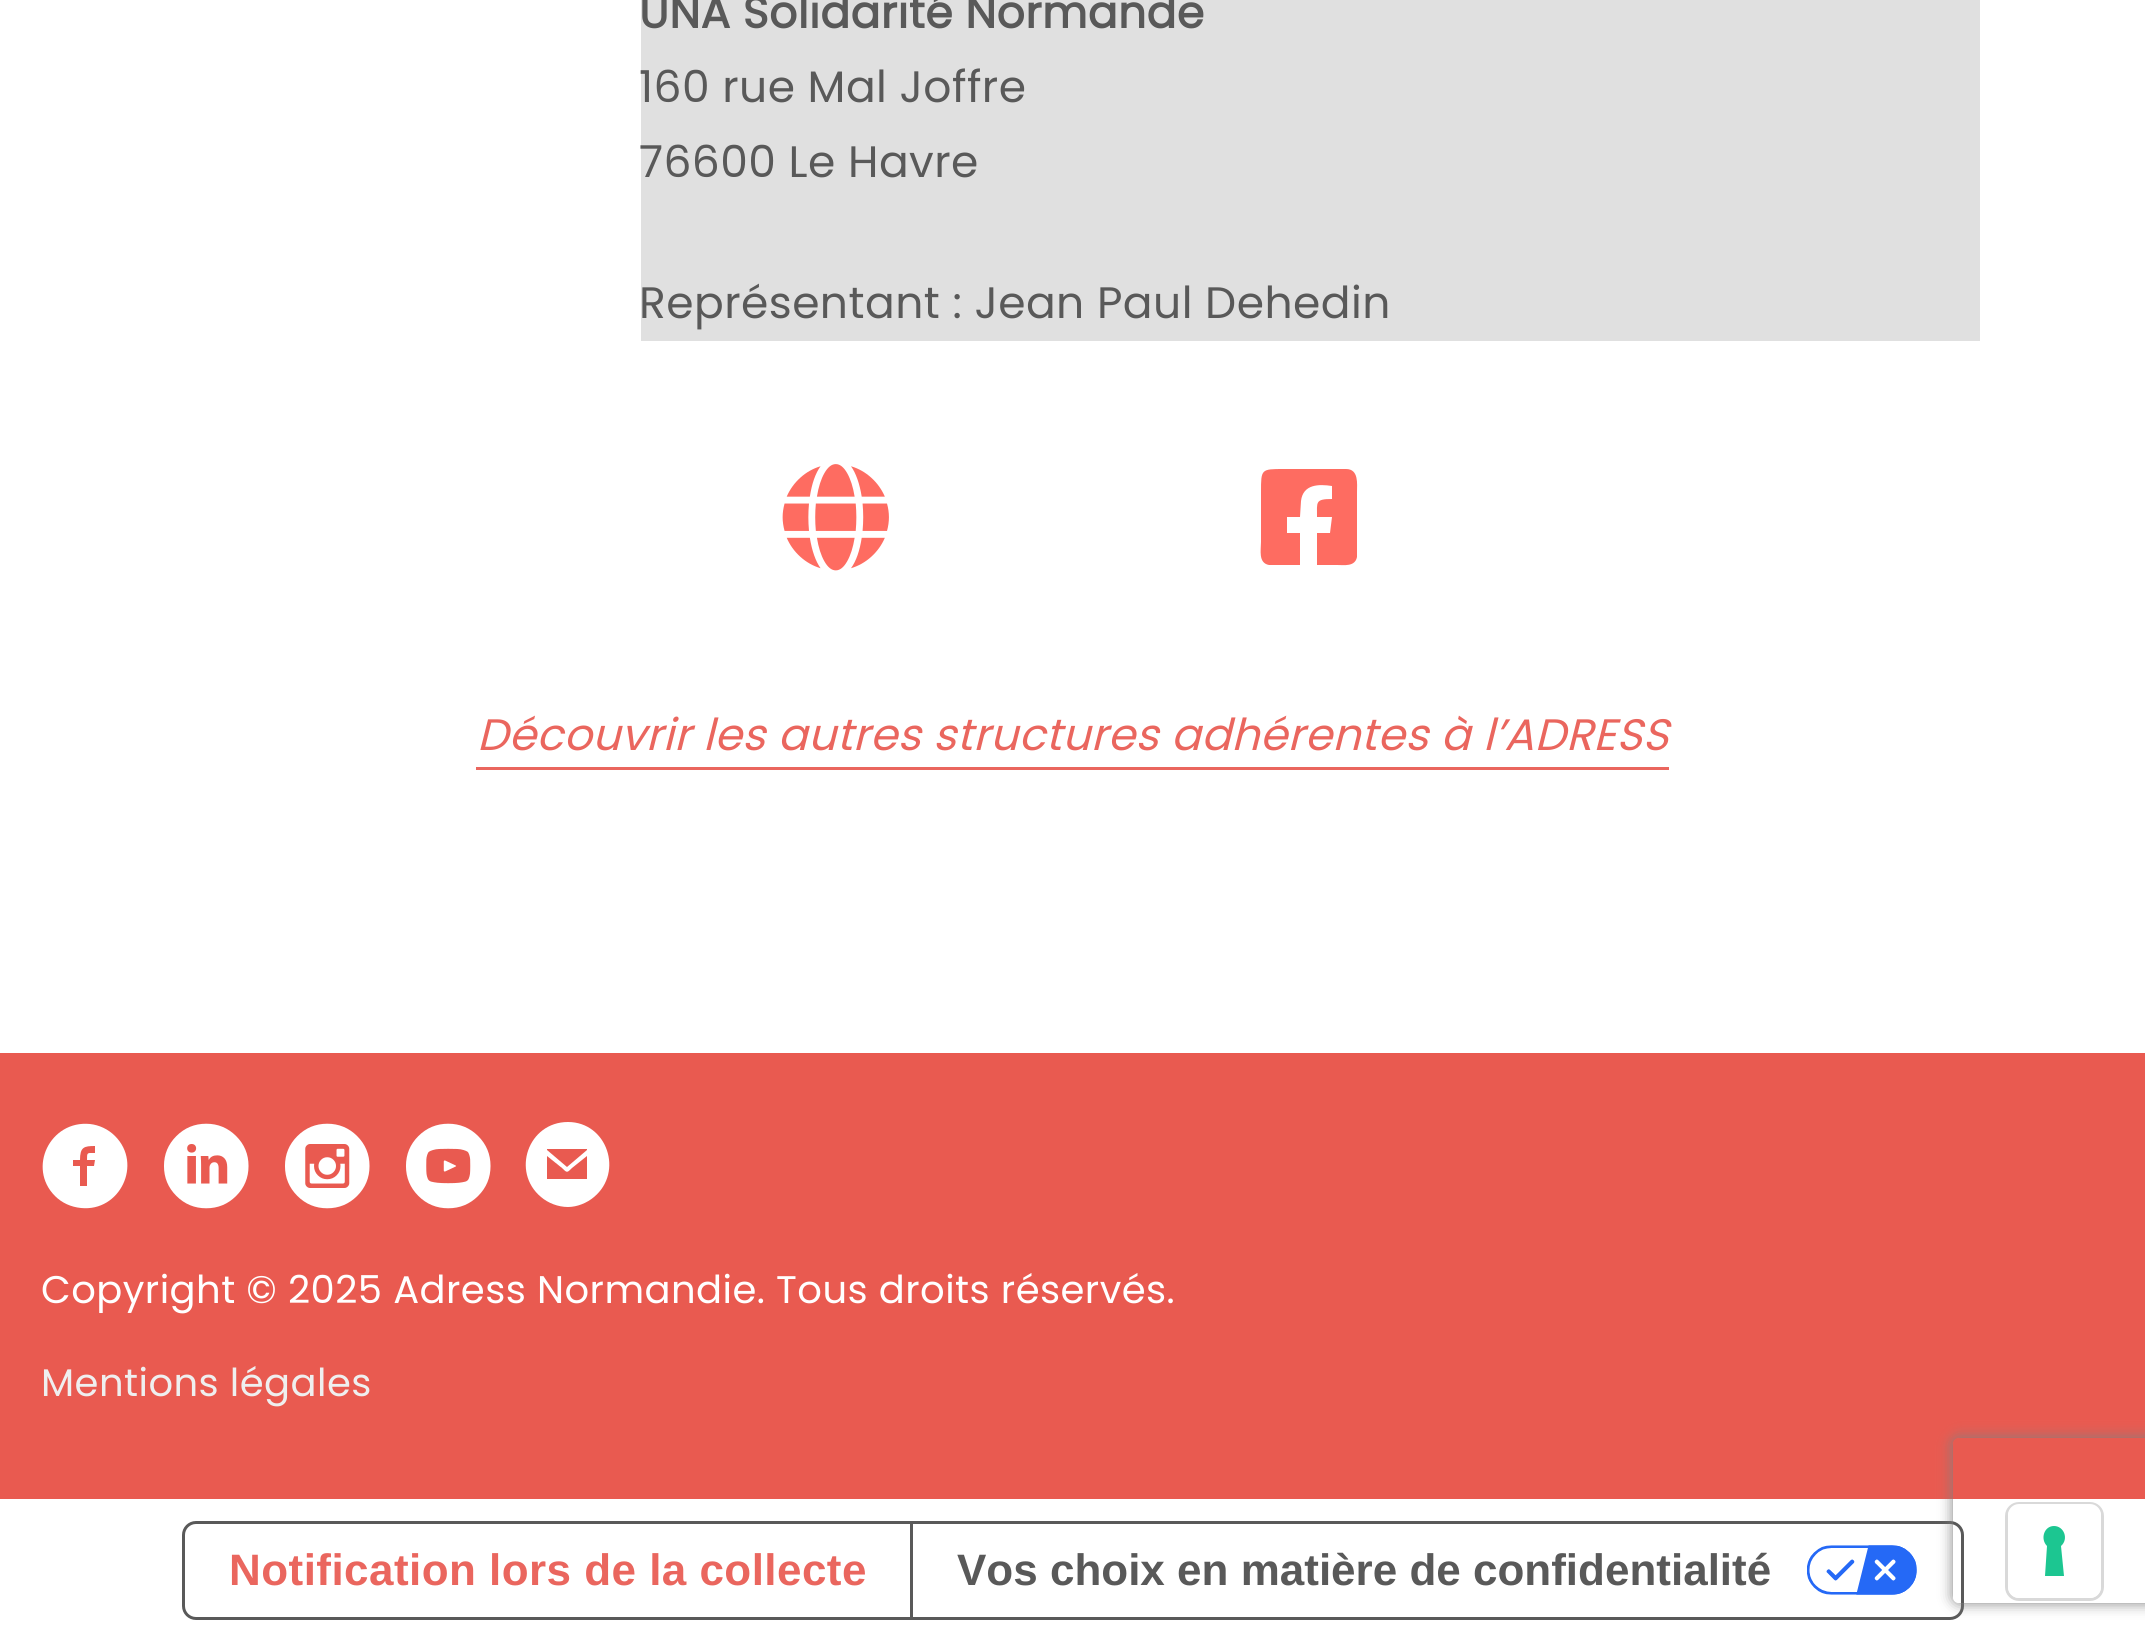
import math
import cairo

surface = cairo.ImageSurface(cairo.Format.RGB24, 2145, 1640)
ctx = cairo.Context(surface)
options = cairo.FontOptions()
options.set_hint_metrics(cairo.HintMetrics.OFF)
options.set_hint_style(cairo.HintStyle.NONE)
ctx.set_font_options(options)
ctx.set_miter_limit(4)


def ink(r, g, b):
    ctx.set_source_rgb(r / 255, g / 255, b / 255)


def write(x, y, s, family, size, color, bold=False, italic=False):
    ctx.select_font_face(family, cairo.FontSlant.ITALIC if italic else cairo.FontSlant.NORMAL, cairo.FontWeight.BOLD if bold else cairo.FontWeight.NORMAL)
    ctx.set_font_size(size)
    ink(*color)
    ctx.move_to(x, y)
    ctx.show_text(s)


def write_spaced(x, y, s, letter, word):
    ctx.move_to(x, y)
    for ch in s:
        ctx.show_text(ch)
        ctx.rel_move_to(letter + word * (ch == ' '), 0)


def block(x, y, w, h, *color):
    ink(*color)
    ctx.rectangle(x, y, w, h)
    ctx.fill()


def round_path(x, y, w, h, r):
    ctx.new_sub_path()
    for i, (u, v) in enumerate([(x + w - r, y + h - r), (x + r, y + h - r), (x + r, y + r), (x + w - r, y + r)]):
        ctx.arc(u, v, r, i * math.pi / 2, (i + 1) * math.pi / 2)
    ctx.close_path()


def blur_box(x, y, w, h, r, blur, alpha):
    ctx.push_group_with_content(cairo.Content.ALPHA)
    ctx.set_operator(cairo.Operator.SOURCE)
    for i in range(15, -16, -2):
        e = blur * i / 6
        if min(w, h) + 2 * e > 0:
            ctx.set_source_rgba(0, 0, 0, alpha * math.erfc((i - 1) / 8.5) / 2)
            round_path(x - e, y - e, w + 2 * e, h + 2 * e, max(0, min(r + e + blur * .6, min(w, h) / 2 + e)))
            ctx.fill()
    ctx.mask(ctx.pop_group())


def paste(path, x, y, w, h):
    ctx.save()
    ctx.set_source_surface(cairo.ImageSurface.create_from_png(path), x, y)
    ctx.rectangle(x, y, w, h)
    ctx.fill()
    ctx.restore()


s1 = dict(family="Liberation Sans", size=44, color=(89, 89, 89), bold=True)

ink(255, 255, 255)
ctx.paint()
block(641, 0, 1339, 341, 224, 224, 224)
ctx.select_font_face("Poppins", cairo.FontSlant.NORMAL, cairo.FontWeight.BOLD)
ctx.set_font_size(44)
ink(89, 89, 89)
write_spaced(639, 28, "UNA Solidarité Normande", 0.45, 0)
ctx.select_font_face("Poppins")
write_spaced(639, 102, "160 rue Mal Joffre", 0.45, 0)
write_spaced(639, 177, "76600 Le Havre", 0.45, 0)
write_spaced(639, 318, "Représentant : Jean Paul Dehedin", 0.45, 0)
paste("pic1.png", 782, 464, 107, 107)
ink(254, 108, 97)
ctx.new_path()
ctx.move_to(1346, 469)
ctx.curve_to(1359, 469, 1357, 484, 1357, 492)
ctx.line_to(1357, 557)
ctx.curve_to(1355, 567, 1344, 565, 1337, 565)
ctx.line_to(1317, 565)
ctx.line_to(1317, 533)
ctx.line_to(1330, 533)
ctx.line_to(1332, 517)
ctx.line_to(1317, 517)
ctx.curve_to(1317, 502, 1315, 499, 1332, 499)
ctx.line_to(1332, 486)
ctx.curve_to(1319, 484, 1303, 484, 1301, 501)
ctx.line_to(1300, 517)
ctx.line_to(1287, 517)
ctx.line_to(1287, 533)
ctx.line_to(1300, 533)
ctx.line_to(1300, 565)
ctx.line_to(1269, 565)
ctx.curve_to(1258, 563, 1261, 550, 1261, 542)
ctx.line_to(1261, 492)
ctx.curve_to(1261, 469, 1261, 469, 1284, 469)
ctx.close_path()
ctx.fill()
ctx.select_font_face("Poppins", cairo.FontSlant.ITALIC)
ink(234, 102, 94)
write_spaced(477, 750, "Découvrir les autres structures adhérentes à l’ADRESS", 0.45, 0)
block(476, 767, 1193, 3, 234, 102, 94)
block(0, 1053, 2145, 446, 233, 90, 80)
ink(255, 255, 255)
ctx.new_path()
ctx.move_to(115, 1136)
ctx.curve_to(108, 1129, 99, 1125, 90, 1124)
ctx.curve_to(50, 1120, 27, 1168, 55, 1196)
ctx.curve_to(62, 1203, 71, 1207, 81, 1208)
ctx.curve_to(120, 1212, 143, 1164, 115, 1136)
ctx.close_path()
ctx.move_to(95, 1153)
ctx.curve_to(87, 1153, 87, 1152, 87, 1160)
ctx.line_to(95, 1160)
ctx.line_to(94, 1166)
ctx.line_to(87, 1166)
ctx.line_to(87, 1186)
ctx.line_to(80, 1186)
ctx.line_to(80, 1166)
ctx.line_to(73, 1166)
ctx.line_to(73, 1160)
ctx.line_to(80, 1160)
ctx.curve_to(80, 1147, 84, 1146, 95, 1146)
ctx.close_path()
ctx.fill()
paste("pic2.png", 164, 1123, 85, 86)
paste("pic3.png", 285, 1123, 85, 86)
paste("pic4.png", 406, 1123, 85, 86)
ctx.new_path()
ctx.move_to(568, 1122)
ctx.curve_to(528, 1122, 511, 1172, 541, 1197)
ctx.curve_to(548, 1203, 558, 1207, 568, 1207)
ctx.curve_to(577, 1207, 587, 1203, 594, 1197)
ctx.curve_to(624, 1172, 607, 1122, 568, 1122)
ctx.close_path()
ctx.move_to(587, 1150)
ctx.line_to(567, 1167)
ctx.line_to(547, 1150)
ctx.line_to(547, 1149)
ctx.line_to(587, 1149)
ctx.close_path()
ctx.move_to(587, 1179)
ctx.line_to(547, 1179)
ctx.line_to(547, 1156)
ctx.line_to(562, 1168)
ctx.curve_to(567, 1173, 567, 1173, 572, 1168)
ctx.line_to(587, 1156)
ctx.close_path()
ctx.fill()
ctx.select_font_face("Poppins")
ctx.set_font_size(38.5)
write_spaced(41, 1303, "Copyright © 2025 Adress Normandie. Tous droits réservés.", 0.45, 0)
ink(239, 239, 239)
write_spaced(41, 1396, "Mentions légales", 0.45, 0)
round_path(183.5, 1522.5, 1779, 96, 12.5)
ink(89, 89, 89)
ctx.set_line_width(3)
ctx.stroke()
ctx.save()
ctx.set_fill_rule(cairo.FillRule.EVEN_ODD)
ctx.new_path()
ctx.move_to(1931, 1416)
ctx.line_to(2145, 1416)
ctx.line_to(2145, 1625)
ctx.line_to(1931, 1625)
ctx.close_path()
ctx.move_to(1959, 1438)
ctx.line_to(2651, 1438)
ctx.curve_to(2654.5, 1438, 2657, 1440.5, 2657, 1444)
ctx.line_to(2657, 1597)
ctx.curve_to(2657, 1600.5, 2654.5, 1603, 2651, 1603)
ctx.line_to(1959, 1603)
ctx.curve_to(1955.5, 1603, 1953, 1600.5, 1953, 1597)
ctx.line_to(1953, 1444)
ctx.curve_to(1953, 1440.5, 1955.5, 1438, 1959, 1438)
ctx.close_path()
ctx.clip()
ink(128, 128, 128)
blur_box(1953, 1438, 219, 165, 6, 7, 1)
ctx.restore()
ctx.select_font_face("Liberation Sans", cairo.FontSlant.NORMAL, cairo.FontWeight.BOLD)
ctx.set_font_size(44)
ink(234, 102, 94)
write_spaced(229, 1585, "Notification lors de la collecte", 0.45, 0)
block(910, 1524, 3, 93, 89, 89, 89)
write(957, 1585, "Vos choix en matière de confidentialité", **s1)
paste("pic5.png", 1807, 1545, 110, 50)
round_path(2006.5, 1503.5, 96, 96, 12.5)
ink(217, 217, 217)
ctx.stroke()
ink(255, 255, 255)
round_path(2008, 1504, 93, 94, 11)
ctx.fill()
ink(28, 198, 145)
ctx.set_fill_rule(cairo.FillRule.EVEN_ODD)
ctx.new_path()
ctx.move_to(2054, 1526)
ctx.curve_to(2064, 1526, 2069, 1539, 2061, 1546)
ctx.line_to(2064, 1576)
ctx.line_to(2045, 1576)
ctx.line_to(2047, 1546)
ctx.curve_to(2040, 1539, 2044, 1526, 2054, 1526)
ctx.close_path()
ctx.fill()
surface.write_to_png("screenshot.png")
